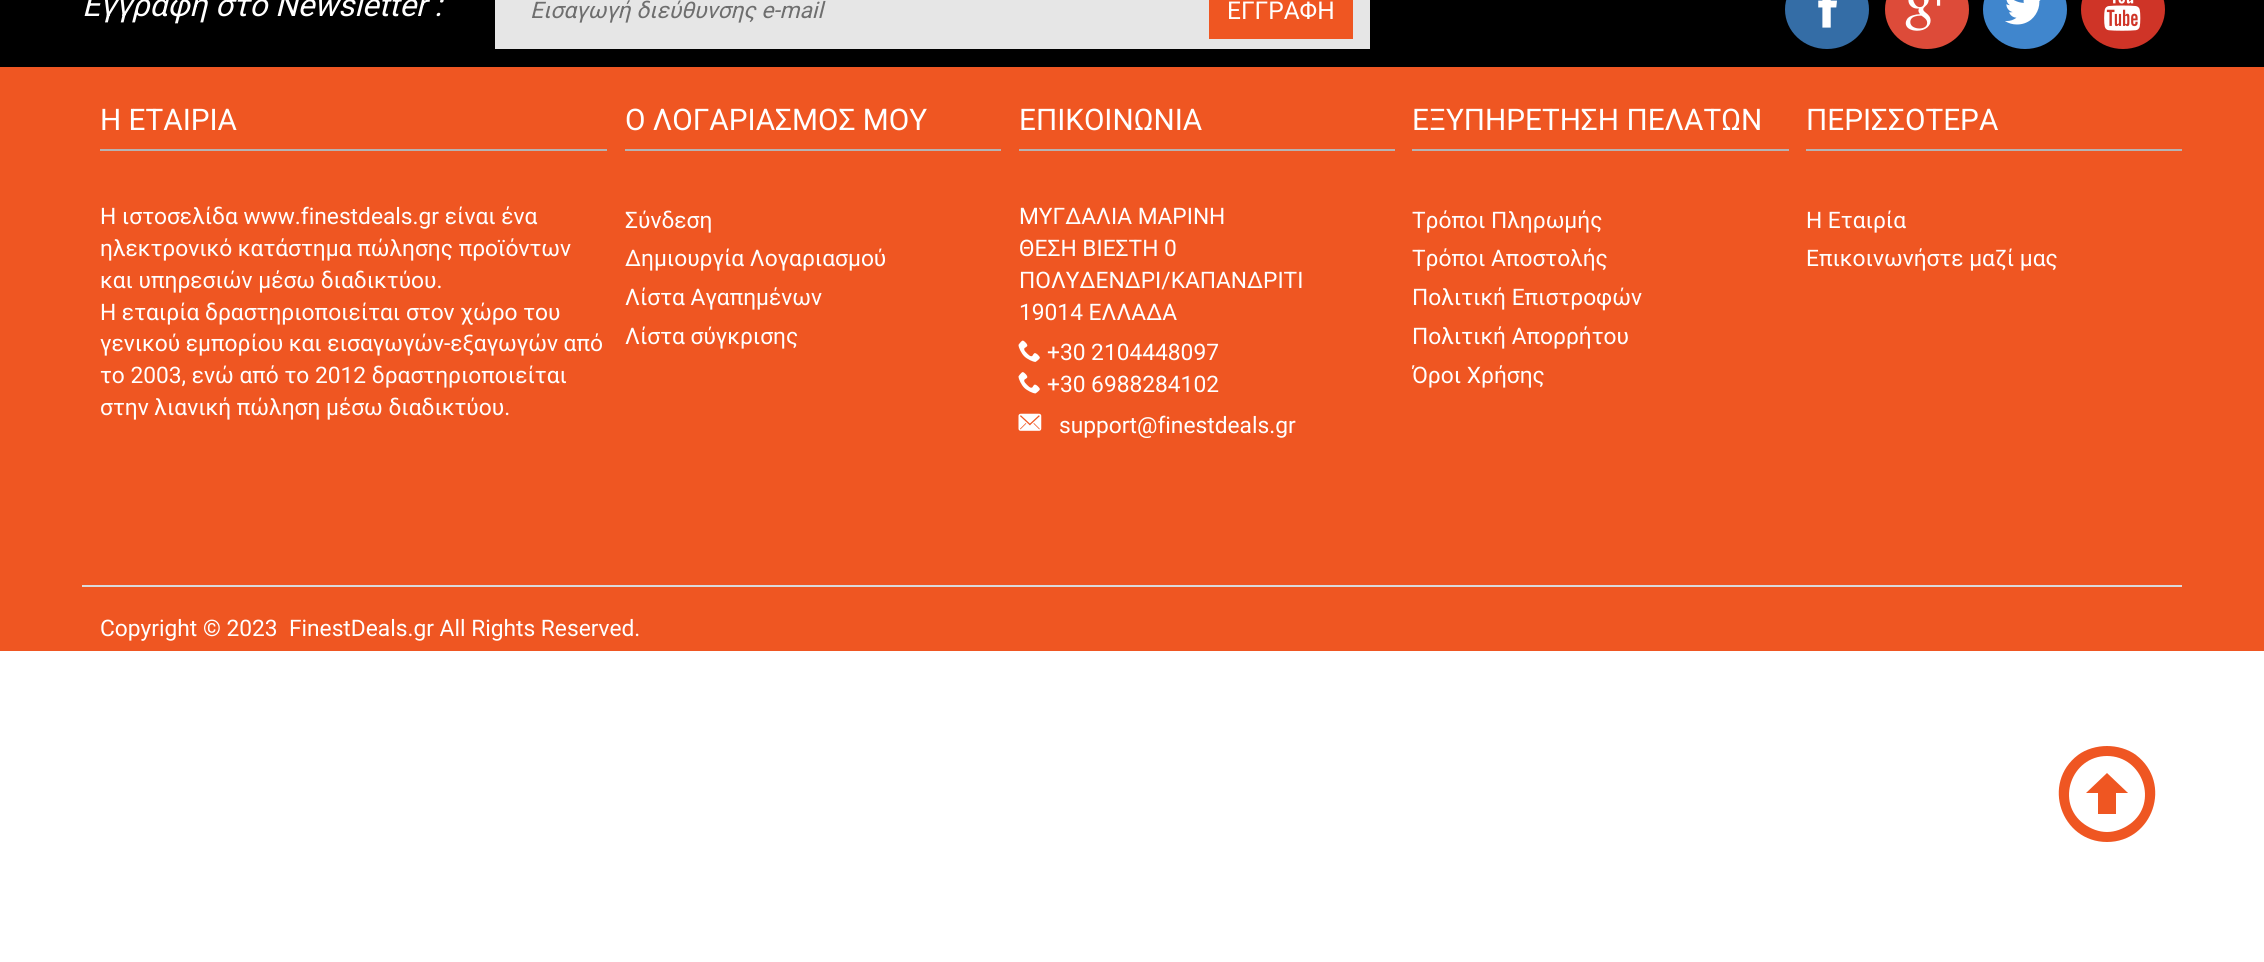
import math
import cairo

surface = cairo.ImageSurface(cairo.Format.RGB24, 2264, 962)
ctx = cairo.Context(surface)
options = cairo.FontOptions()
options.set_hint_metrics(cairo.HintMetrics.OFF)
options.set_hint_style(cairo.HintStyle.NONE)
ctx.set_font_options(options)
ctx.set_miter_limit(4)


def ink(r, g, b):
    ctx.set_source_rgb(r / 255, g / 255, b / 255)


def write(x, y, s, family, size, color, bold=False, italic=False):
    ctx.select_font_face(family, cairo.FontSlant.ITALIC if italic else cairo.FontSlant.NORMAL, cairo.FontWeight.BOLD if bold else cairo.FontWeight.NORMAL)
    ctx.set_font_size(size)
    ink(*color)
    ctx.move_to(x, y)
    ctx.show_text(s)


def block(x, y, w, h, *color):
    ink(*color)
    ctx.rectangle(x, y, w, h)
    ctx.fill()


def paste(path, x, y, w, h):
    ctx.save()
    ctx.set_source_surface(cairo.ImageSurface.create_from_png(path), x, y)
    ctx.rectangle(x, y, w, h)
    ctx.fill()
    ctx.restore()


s1 = dict(family="Roboto", size=31.5, color=(255, 255, 255), italic=True)
s2 = dict(family="Roboto", size=22.75, color=(110, 110, 110), italic=True)
s3 = dict(family="Roboto", size=24.5, color=(255, 255, 255))
s4 = dict(family="Roboto", size=29.75, color=(255, 255, 255))
s5 = dict(family="Roboto", size=22.75, color=(255, 255, 255))

ink(255, 255, 255)
ctx.paint()
block(0, 67, 2264, 584, 239, 86, 34)
block(0, 0, 2264, 67, 0, 0, 0)
write(82, 16, "Εγγραφή στο Newsletter :", **s1)
block(495, 0, 875, 49, 230, 230, 230)
write(530, 18, "Εισαγωγή διεύθυνσης e-mail", **s2)
block(1209, 0, 144, 39, 239, 86, 34)
write(1227, 19, "ΕΓΓΡΑΦΗ", **s3)
ink(52, 109, 166)
ctx.new_path()
ctx.move_to(1827, -30)
ctx.curve_to(1850, -30, 1869, -12.5, 1869, 9.5)
ctx.curve_to(1869, 31.5, 1850, 49, 1827, 49)
ctx.curve_to(1804, 49, 1785, 31.5, 1785, 9.5)
ctx.curve_to(1785, -12.5, 1804, -30, 1827, -30)
ctx.close_path()
ctx.fill()
paste("pic1.png", 1818, 0, 19, 28)
ink(221, 75, 57)
ctx.new_path()
ctx.move_to(1927, -30)
ctx.curve_to(1950, -30, 1969, -12.5, 1969, 9.5)
ctx.curve_to(1969, 31.5, 1950, 49, 1927, 49)
ctx.curve_to(1904, 49, 1885, 31.5, 1885, 9.5)
ctx.curve_to(1885, -12.5, 1904, -30, 1927, -30)
ctx.close_path()
ctx.fill()
paste("pic2.png", 1905, 0, 36, 31)
ink(64, 134, 205)
ctx.new_path()
ctx.move_to(2025, -30)
ctx.curve_to(2048, -30, 2067, -12.5, 2067, 9.5)
ctx.curve_to(2067, 31.5, 2048, 49, 2025, 49)
ctx.curve_to(2002, 49, 1983, 31.5, 1983, 9.5)
ctx.curve_to(1983, -12.5, 2002, -30, 2025, -30)
ctx.close_path()
ctx.fill()
paste("pic3.png", 2005, 0, 36, 25)
ink(207, 52, 39)
ctx.new_path()
ctx.move_to(2123, -30)
ctx.curve_to(2146, -30, 2165, -12.5, 2165, 9.5)
ctx.curve_to(2165, 31.5, 2146, 49, 2123, 49)
ctx.curve_to(2100, 49, 2081, 31.5, 2081, 9.5)
ctx.curve_to(2081, -12.5, 2100, -30, 2123, -30)
ctx.close_path()
ctx.fill()
paste("pic4.png", 2104, 0, 37, 31)
block(82, 585, 2100, 2, 218, 218, 218)
block(100, 149, 507, 2, 182, 178, 178)
write(100, 130, "Η ΕΤΑΙΡΙΑ", **s4)
write(100, 224, "Η ιστοσελίδα www.finestdeals.gr είναι ένα", **s5)
write(100, 256, "ηλεκτρονικό κατάστημα πώλησης προϊόντων", **s5)
write(100, 288, "και υπηρεσιών μέσω διαδικτύου.", **s5)
write(100, 320, "Η εταιρία δραστηριοποιείται στον χώρο του", **s5)
write(100, 351, "γενικού εμπορίου και εισαγωγών-εξαγωγών από", **s5)
write(100, 383, "το 2003, ενώ από το 2012 δραστηριοποιείται", **s5)
write(100, 415, "στην λιανική πώληση μέσω διαδικτύου.", **s5)
block(625, 149, 376, 2, 182, 178, 178)
write(625, 130, "Ο ΛΟΓΑΡΙΑΣΜΟΣ ΜΟΥ", **s4)
write(625, 228, "Σύνδεση", **s5)
write(625, 266, "Δημιουργία Λογαριασμού", **s5)
write(625, 305, "Λίστα Αγαπημένων", **s5)
write(625, 344, "Λίστα σύγκρισης", **s5)
block(1019, 149, 376, 2, 182, 178, 178)
write(1019, 130, "ΕΠΙΚΟΙΝΩΝΙΑ", **s4)
write(1019, 224, "ΜΥΓΔΑΛΙΑ ΜΑΡΙΝΗ", **s5)
write(1019, 256, "ΘΕΣΗ ΒΙΕΣΤΗ 0", **s5)
write(1019, 288, "ΠΟΛΥΔΕΝΔΡΙ/ΚΑΠΑΝΔΡΙΤΙ", **s5)
write(1019, 320, "19014 ΕΛΛΑΔΑ", **s5)
paste("pic5.png", 1018, 340, 22, 22)
write(1047, 360, "+30 2104448097", **s5)
paste("pic6.png", 1018, 372, 22, 22)
write(1047, 392, "+30 6988284102", **s5)
paste("pic7.png", 1018, 413, 24, 18)
write(1059, 433, "support@finestdeals.gr", **s5)
block(1412, 149, 377, 2, 182, 178, 178)
write(1412, 130, "ΕΞΥΠΗΡΕΤΗΣΗ ΠΕΛΑΤΩΝ", **s4)
write(1412, 228, "Τρόποι Πληρωμής", **s5)
write(1412, 266, "Τρόποι Αποστολής", **s5)
write(1412, 305, "Πολιτική Επιστροφών", **s5)
write(1412, 344, "Πολιτική Απορρήτου", **s5)
write(1412, 383, "Όροι Χρήσης", **s5)
block(1806, 149, 376, 2, 182, 178, 178)
write(1806, 130, "ΠΕΡΙΣΣΟΤΕΡΑ", **s4)
write(1806, 228, "Η Εταιρία", **s5)
write(1806, 266, "Επικοινωνήστε μαζί μας", **s5)
write(100, 636, "Copyright © 2023  FinestDeals.gr All Rights Reserved.", **s5)
ink(239, 86, 34)
ctx.new_path()
ctx.move_to(2107, 842)
ctx.curve_to(2153, 842, 2173, 783, 2136, 755)
ctx.curve_to(2128, 749, 2117, 746, 2107, 746)
ctx.curve_to(2097, 746, 2086, 749, 2078, 755)
ctx.curve_to(2041, 783, 2061, 842, 2107, 842)
ctx.close_path()
ctx.move_to(2107, 756)
ctx.curve_to(2143, 756, 2159, 803, 2130, 824)
ctx.curve_to(2123, 829, 2115, 832, 2107, 832)
ctx.curve_to(2099, 832, 2091, 829, 2084, 824)
ctx.curve_to(2055, 803, 2071, 756, 2107, 756)
ctx.close_path()
ctx.move_to(2098, 814)
ctx.line_to(2116, 814)
ctx.line_to(2116, 793)
ctx.line_to(2128, 793)
ctx.line_to(2107, 773)
ctx.line_to(2086, 793)
ctx.line_to(2098, 793)
ctx.close_path()
ctx.fill()
surface.write_to_png("screenshot.png")
